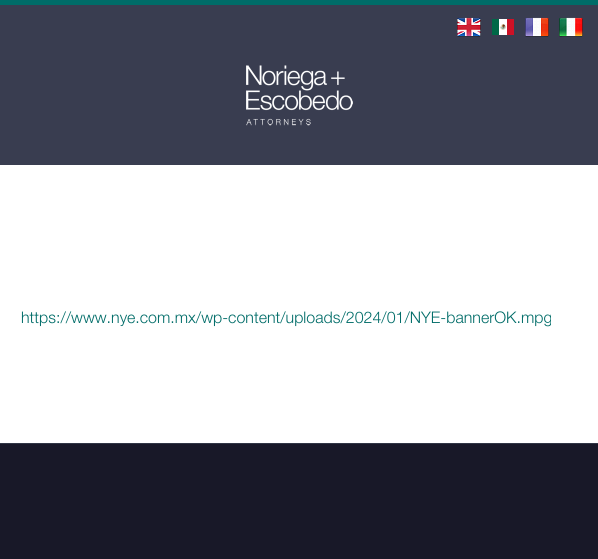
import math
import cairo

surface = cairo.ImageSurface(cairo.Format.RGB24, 598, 559)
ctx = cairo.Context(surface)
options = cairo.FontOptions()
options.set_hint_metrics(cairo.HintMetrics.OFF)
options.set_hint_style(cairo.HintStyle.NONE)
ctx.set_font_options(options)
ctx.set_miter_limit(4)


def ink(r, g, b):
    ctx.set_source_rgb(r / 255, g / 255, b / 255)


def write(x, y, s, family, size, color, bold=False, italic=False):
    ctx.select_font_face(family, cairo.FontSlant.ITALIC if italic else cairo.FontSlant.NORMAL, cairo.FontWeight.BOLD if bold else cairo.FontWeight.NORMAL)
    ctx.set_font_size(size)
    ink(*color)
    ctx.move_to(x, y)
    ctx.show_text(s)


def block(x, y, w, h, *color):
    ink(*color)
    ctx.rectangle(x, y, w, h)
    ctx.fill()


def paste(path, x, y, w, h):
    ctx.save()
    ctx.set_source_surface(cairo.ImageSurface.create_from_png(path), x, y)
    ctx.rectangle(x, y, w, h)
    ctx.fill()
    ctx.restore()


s1 = dict(family="Helvetica Neue Light", size=16, color=(0, 108, 104))

ink(57, 61, 80)
ctx.paint()
paste("pic1.png", 457, 17, 24, 20)
paste("pic2.png", 492, 19, 22, 16)
paste("pic3.png", 525, 17, 24, 20)
paste("pic4.png", 559, 17, 24, 20)
block(0, 0, 598, 5, 0, 108, 104)
paste("pic5.png", 246, 65, 107, 61)
block(0, 165, 598, 278, 255, 255, 255)
write(21, 323, "https://www.nye.com.mx/wp-content/uploads/2024/01/NYE-bannerOK.mpg", **s1)
block(0, 444, 598, 115, 24, 24, 40)
block(0, 443, 598, 1, 49, 54, 70)
surface.write_to_png("screenshot.png")
